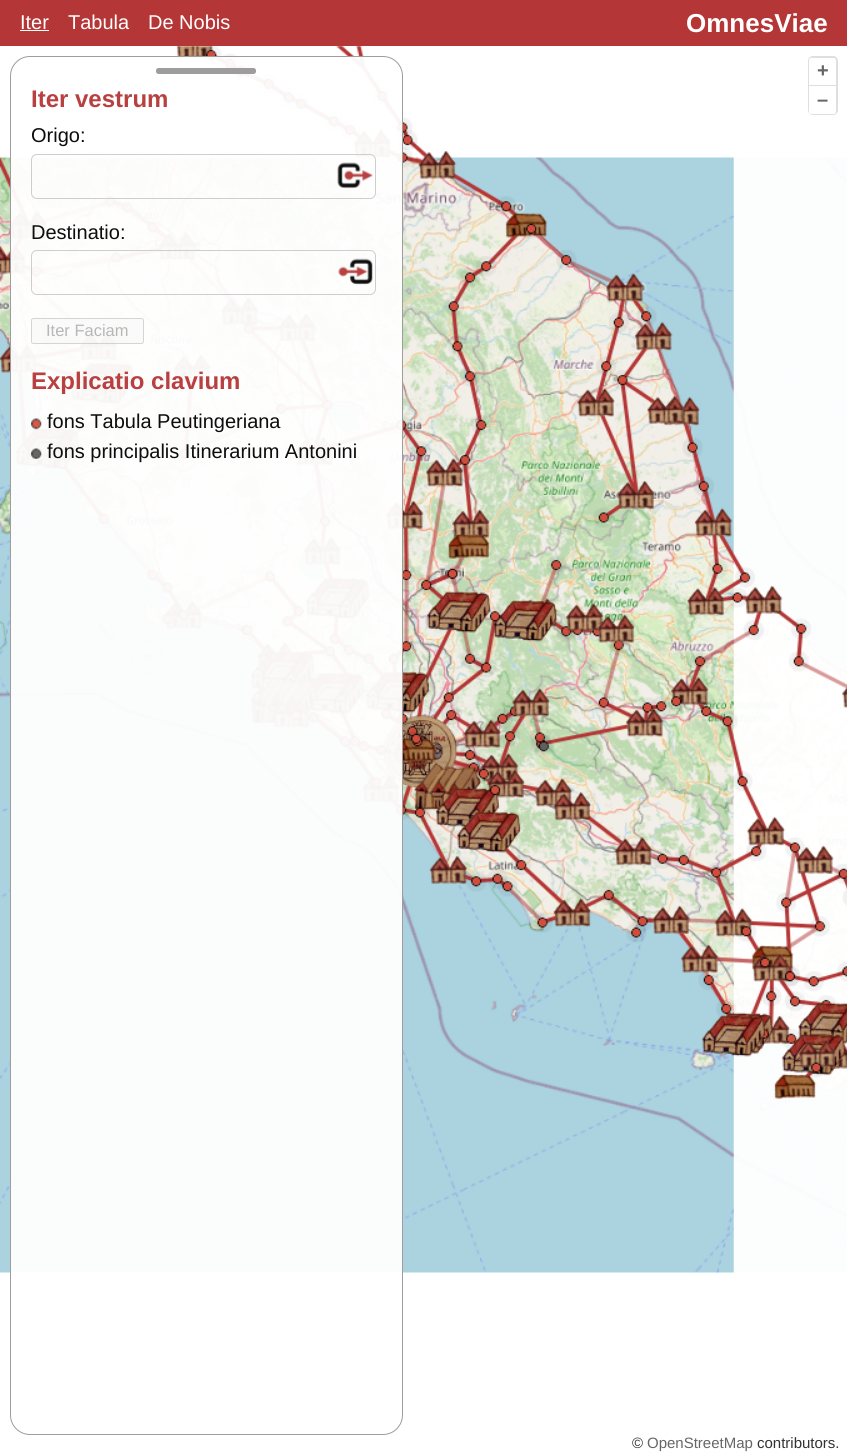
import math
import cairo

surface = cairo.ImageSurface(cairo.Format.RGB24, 847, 1454)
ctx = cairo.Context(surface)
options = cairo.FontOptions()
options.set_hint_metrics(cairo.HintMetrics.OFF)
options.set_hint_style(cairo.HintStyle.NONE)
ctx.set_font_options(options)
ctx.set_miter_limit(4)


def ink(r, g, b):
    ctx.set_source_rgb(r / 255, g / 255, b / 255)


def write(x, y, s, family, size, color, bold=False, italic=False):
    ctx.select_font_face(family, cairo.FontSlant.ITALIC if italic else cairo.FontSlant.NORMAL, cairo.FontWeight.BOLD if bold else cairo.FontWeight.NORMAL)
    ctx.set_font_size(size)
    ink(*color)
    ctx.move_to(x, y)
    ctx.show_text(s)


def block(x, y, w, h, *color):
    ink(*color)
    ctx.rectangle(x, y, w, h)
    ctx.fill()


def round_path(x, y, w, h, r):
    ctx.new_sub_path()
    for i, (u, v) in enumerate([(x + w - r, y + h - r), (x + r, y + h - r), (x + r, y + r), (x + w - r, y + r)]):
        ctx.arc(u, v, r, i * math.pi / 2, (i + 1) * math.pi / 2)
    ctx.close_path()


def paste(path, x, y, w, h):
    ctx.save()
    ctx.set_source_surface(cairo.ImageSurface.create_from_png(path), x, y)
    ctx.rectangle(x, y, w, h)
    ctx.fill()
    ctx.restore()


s1 = dict(family="Liberation Sans", size=20, color=(255, 255, 255))
s2 = dict(family="Liberation Sans", size=26, color=(255, 255, 255), bold=True)
s3 = dict(family="Liberation Sans", size=24, color=(184, 64, 64), bold=True)
s4 = dict(family="Liberation Sans", size=20, color=(13, 13, 13))
s5 = dict(family="Liberation Sans", size=16.5, color=(182, 183, 182))
s6 = dict(family="Liberation Sans", size=20, color=(102, 102, 102), bold=True)
s7 = dict(family="Liberation Sans", size=15, color=(51, 51, 51))
s8 = dict(family="Liberation Sans", size=15, color=(102, 102, 102))

ink(255, 255, 255)
ctx.paint()
block(0, 0, 847, 46, 180, 54, 54)
write(20, 29, "Iter", **s1)
block(20, 30, 29, 1, 255, 255, 255)
write(68, 29, "Tabula", **s1)
write(148, 29, "De Nobis", **s1)
write(686, 32, "OmnesViae", **s2)
paste("pic5.png", 0, 46, 847, 1227)
ctx.set_source_rgba(1, 1, 1, 0.95)
round_path(10, 56, 393, 1379, 20)
ctx.fill()
round_path(10.5, 56.5, 392, 1378, 19.5)
ctx.set_source_rgba(0.6, 0.6, 0.6, 0.95)
ctx.set_line_width(1)
ctx.stroke()
round_path(156, 68, 100, 6, 2.5)
ctx.fill()
write(31, 107, "Iter vestrum", **s3)
write(31, 142, "Origo:", **s4)
paste("pic1.png", 337, 162, 36, 27)
round_path(31.5, 154.5, 344, 44, 5.5)
ctx.set_source_rgba(0.8, 0.8, 0.8, 0.95)
ctx.stroke()
write(31, 239, "Destinatio:", **s4)
paste("pic2.png", 338, 258, 35, 27)
round_path(31.5, 250.5, 344, 44, 5.5)
ctx.set_source_rgba(0.8, 0.8, 0.8, 0.95)
ctx.stroke()
ctx.set_source_rgba(0.937, 0.937, 0.937, 0.28)
round_path(31, 318, 113, 26, 2.5)
ctx.fill()
round_path(31.5, 318.5, 112, 25, 2)
ctx.set_source_rgba(0.463, 0.463, 0.463, 0.28)
ctx.stroke()
write(46, 336, "Iter Faciam", **s5)
write(31, 389, "Explicatio clavium", **s3)
paste("pic3.png", 31, 418, 11, 12)
write(47, 428, "fons Tabula Peutingeriana", **s4)
paste("pic4.png", 31, 448, 11, 11)
write(47, 458, "fons principalis Itinerarium Antonini", **s4)
ink(223, 223, 223)
round_path(808, 56, 30, 59, 5)
ctx.fill()
ink(255, 255, 255)
ctx.new_path()
ctx.move_to(811.5, 58)
ctx.line_to(833.5, 58)
ctx.curve_to(835, 58, 836, 59, 836, 60.5)
ctx.line_to(836, 85)
ctx.line_to(809, 85)
ctx.line_to(809, 60.5)
ctx.curve_to(809, 59, 810, 58, 811.5, 58)
ctx.close_path()
ctx.fill()
write(817, 77, "+", **s6)
ink(255, 255, 255)
ctx.new_path()
ctx.move_to(809, 86)
ctx.line_to(836, 86)
ctx.line_to(836, 111.5)
ctx.curve_to(836, 113, 835, 114, 833.5, 114)
ctx.line_to(811.5, 114)
ctx.curve_to(810, 114, 809, 113, 809, 111.5)
ctx.close_path()
ctx.fill()
write(817, 106, "–", **s6)
write(632, 1448, "©", **s7)
write(647, 1448, "OpenStreetMap", **s8)
write(757, 1448, "contributors.", **s7)
surface.write_to_png("screenshot.png")
